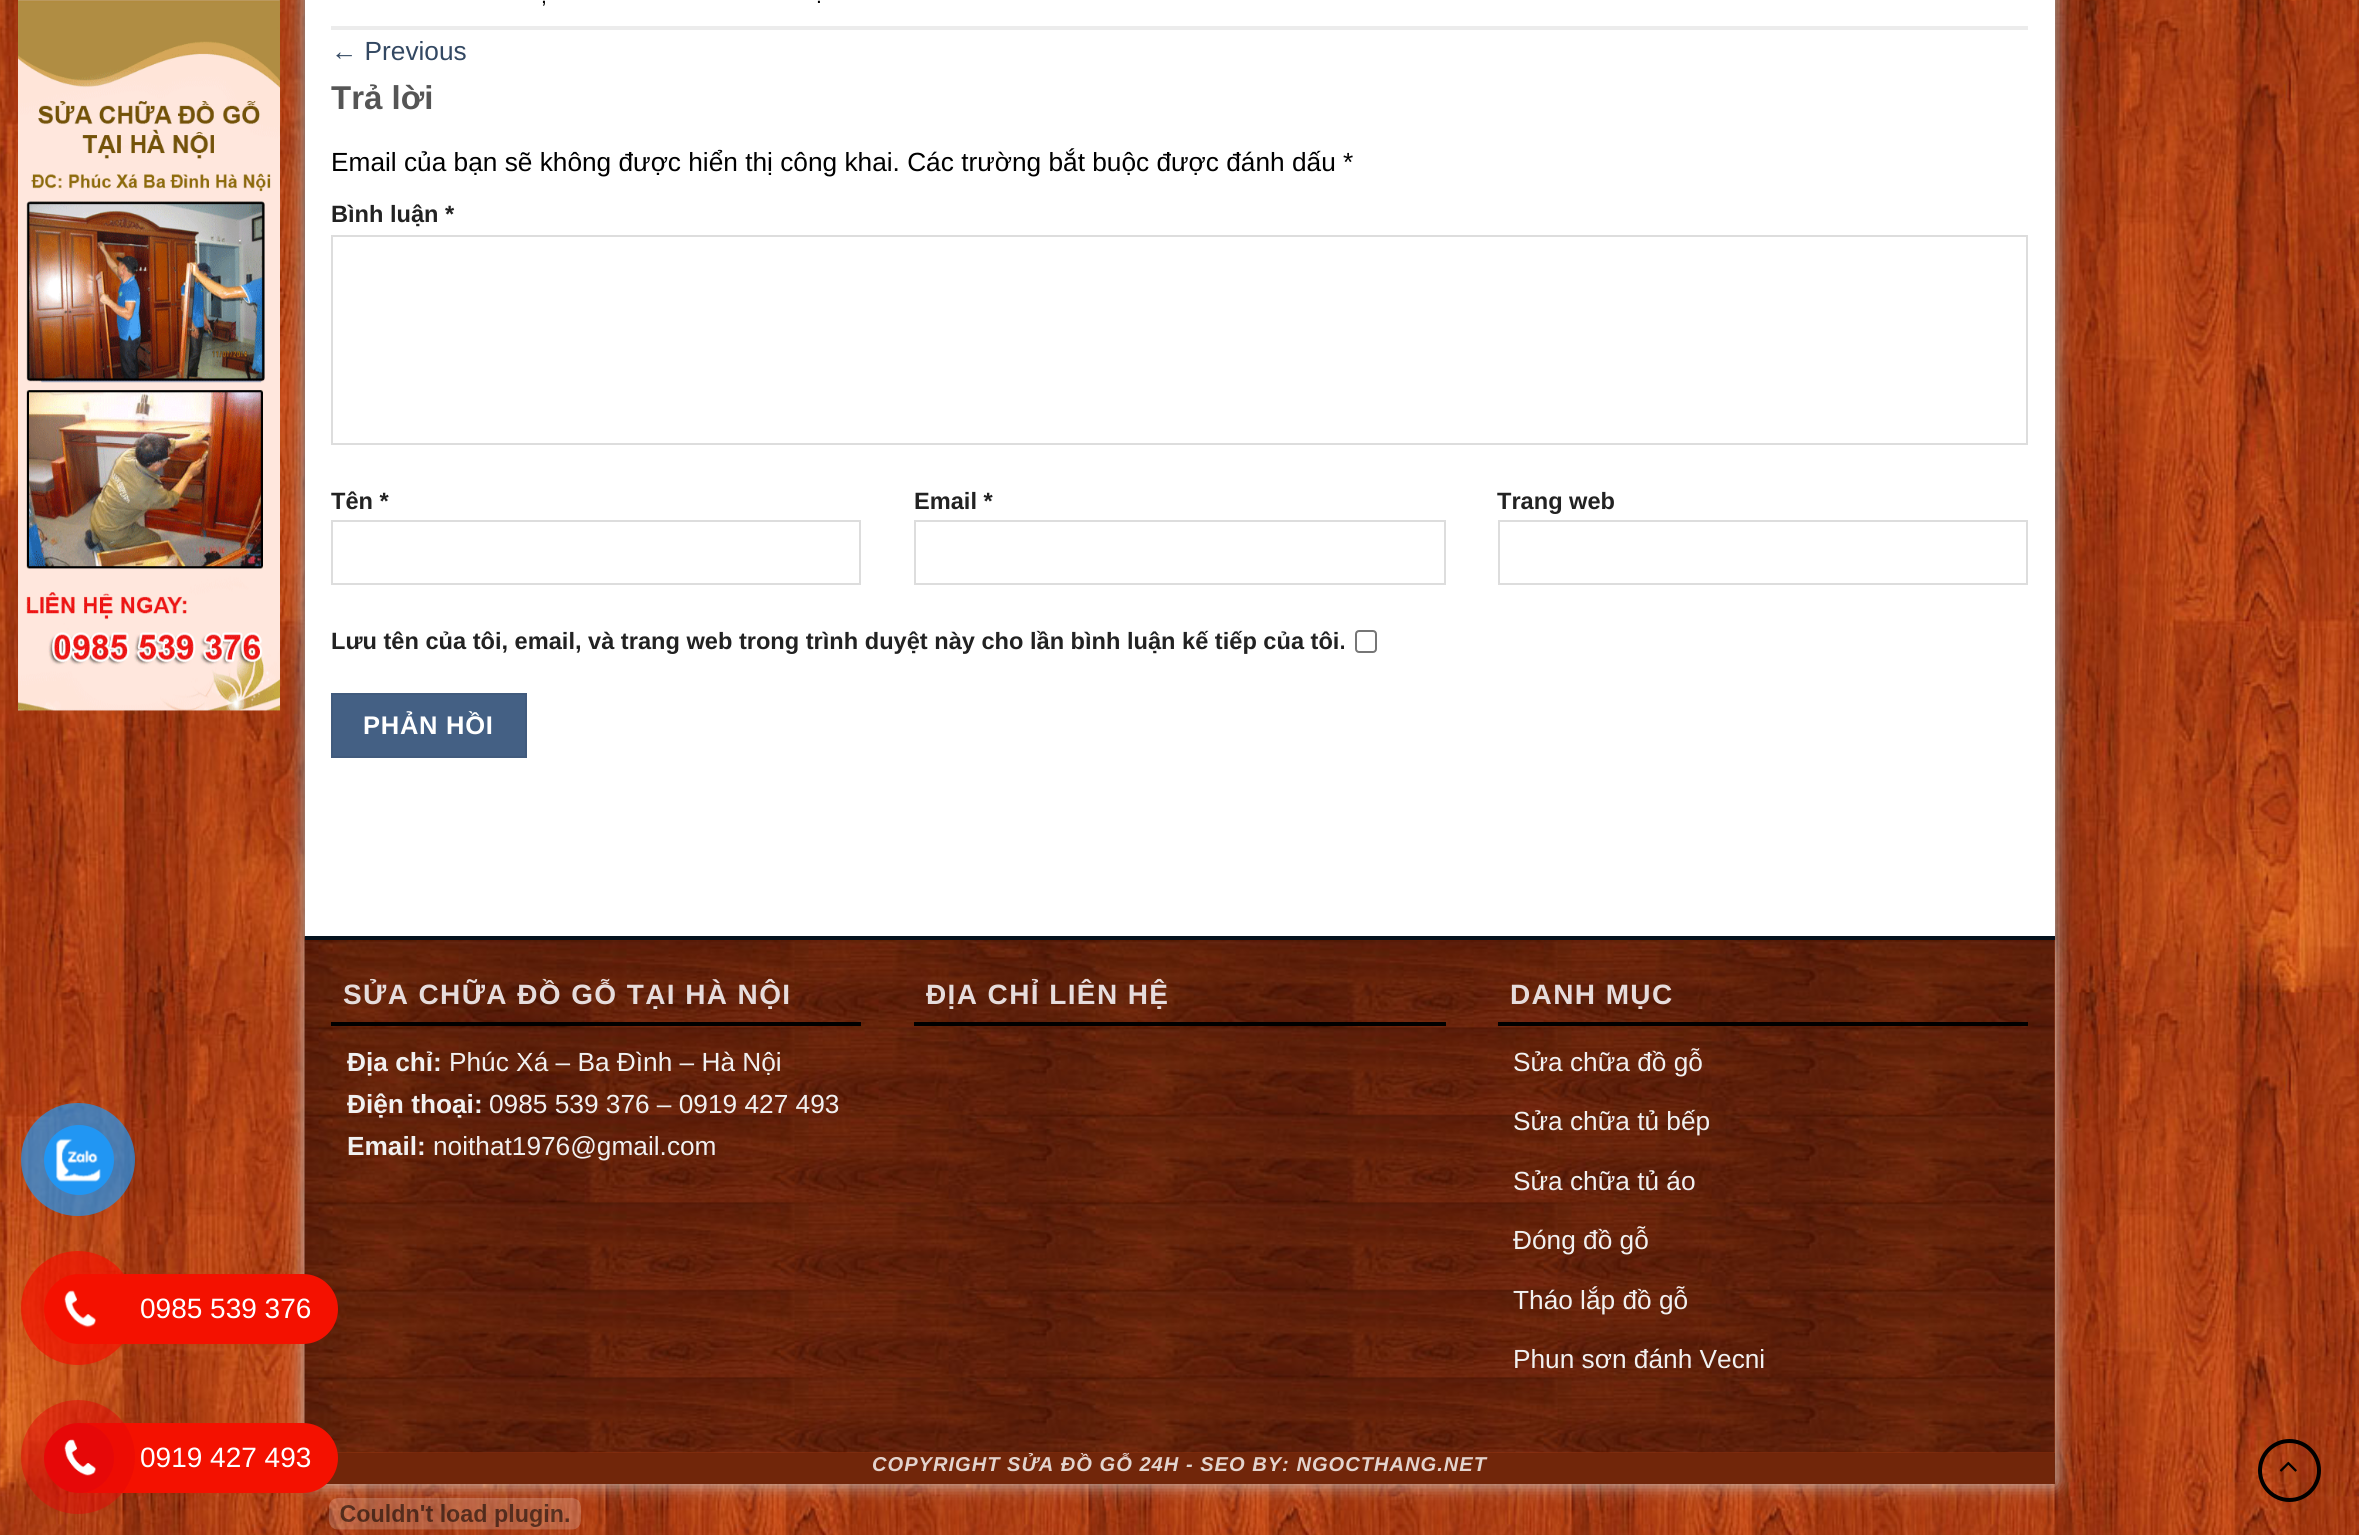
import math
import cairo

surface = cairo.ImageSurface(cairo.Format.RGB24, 2359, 1535)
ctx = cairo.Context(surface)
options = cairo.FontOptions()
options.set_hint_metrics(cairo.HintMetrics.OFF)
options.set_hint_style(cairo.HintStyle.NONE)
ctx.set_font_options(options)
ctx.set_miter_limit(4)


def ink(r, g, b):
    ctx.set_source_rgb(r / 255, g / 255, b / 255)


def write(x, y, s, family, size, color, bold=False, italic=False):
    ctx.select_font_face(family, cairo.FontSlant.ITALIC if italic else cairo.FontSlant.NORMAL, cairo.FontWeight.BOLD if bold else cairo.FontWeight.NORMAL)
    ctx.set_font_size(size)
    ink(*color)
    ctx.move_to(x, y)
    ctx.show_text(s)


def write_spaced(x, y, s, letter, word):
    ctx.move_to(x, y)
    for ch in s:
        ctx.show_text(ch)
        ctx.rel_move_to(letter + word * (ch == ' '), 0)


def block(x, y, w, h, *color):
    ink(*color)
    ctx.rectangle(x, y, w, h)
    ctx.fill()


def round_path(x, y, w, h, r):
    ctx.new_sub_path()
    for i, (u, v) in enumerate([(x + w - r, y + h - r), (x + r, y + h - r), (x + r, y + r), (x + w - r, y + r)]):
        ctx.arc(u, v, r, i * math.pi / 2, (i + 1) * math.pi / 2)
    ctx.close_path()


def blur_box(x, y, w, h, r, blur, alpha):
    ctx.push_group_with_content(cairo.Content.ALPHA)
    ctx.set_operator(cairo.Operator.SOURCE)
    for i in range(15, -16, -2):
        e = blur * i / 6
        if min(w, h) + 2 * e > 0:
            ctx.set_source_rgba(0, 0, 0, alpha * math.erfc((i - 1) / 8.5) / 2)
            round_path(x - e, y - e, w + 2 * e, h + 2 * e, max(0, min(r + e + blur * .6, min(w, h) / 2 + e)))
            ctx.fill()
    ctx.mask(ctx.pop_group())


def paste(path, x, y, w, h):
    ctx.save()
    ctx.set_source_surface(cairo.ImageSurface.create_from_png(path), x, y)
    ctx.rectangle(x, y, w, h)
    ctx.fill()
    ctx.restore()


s1 = dict(family="Liberation Sans", size=21, color=(0, 0, 0))
s2 = dict(family="Liberation Sans", size=26.25, color=(51, 72, 98))
s3 = dict(family="Liberation Sans", size=33, color=(85, 85, 85), bold=True)
s4 = dict(family="Liberation Sans", size=26.25, color=(0, 0, 0))
s5 = dict(family="Liberation Sans", size=23.6, color=(34, 34, 34), bold=True)
s6 = dict(family="Liberation Sans", size=26.25, color=(241, 241, 241), bold=True)
s7 = dict(family="Liberation Sans", size=26.25, color=(241, 241, 241))
s8 = dict(family="Liberation Sans", size=28, color=(255, 255, 255))

ink(255, 255, 255)
ctx.paint()
paste("pic1.png", 0, 0, 2359, 1535)
paste("pic8.png", 329, 1498, 252, 32)
ink(204, 204, 204)
blur_box(305, -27, 1750, 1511, 0, 9, 1)
ink(0, 0, 0)
blur_box(305, -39, 1750, 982, 0, 13, 0.19)
paste("pic2.png", 18, 0, 262, 711)
blur_box(305, -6, 1750, 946, 0, 2, 0.2)
block(305, 0, 1750, 936, 255, 255, 255)
block(331, 26, 1697, 4, 236, 236, 236)
write(541, 3, ",", **s1)
write(816, 3, ".", **s1)
write(331, 60, "← Previous", **s2)
write(331, 109, "Trả lời", **s3)
write(331, 171, "Email của bạn sẽ không được hiển thị công khai. Các trường bắt buộc được đánh dấu *", **s4)
write(331, 222, "Bình luận *", **s5)
ctx.rectangle(332, 236, 1695, 208)
ink(221, 221, 221)
ctx.stroke()
write(331, 509, "Tên *", **s5)
ctx.rectangle(332, 521, 528, 63)
ink(221, 221, 221)
ctx.stroke()
write(914, 509, "Email *", **s5)
ctx.rectangle(915, 521, 530, 63)
ink(221, 221, 221)
ctx.stroke()
write(1497, 509, "Trang web", **s5)
ctx.rectangle(1499, 521, 528, 63)
ink(221, 221, 221)
ctx.stroke()
write(331, 649, "Lưu tên của tôi, email, và trang web trong trình duyệt này cho lần bình luận kế tiếp của tôi.", **s5)
round_path(1356, 631, 20, 21, 3)
ink(118, 118, 118)
ctx.stroke()
ink(68, 96, 132)
ctx.rectangle(332, 694, 194, 63)
ctx.fill_preserve()
ink(65, 91, 125)
ctx.stroke()
ctx.set_font_size(25.5)
ink(255, 255, 255)
write_spaced(363, 734, "PHẢN HỒI", 0.75, 0)
block(337, 940, 1718, 513, 151, 53, 16)
paste("pic3.png", 304, 936, 1751, 517)
block(305, 936, 1750, 4, 3, 17, 29)
block(331, 1022, 530, 4, 0, 0, 0)
ctx.set_font_size(28)
ink(230, 220, 220)
write_spaced(343, 1004, "SỬA CHỮA ĐỒ GỖ TẠI HÀ NỘI", 1.4, 0)
write(347, 1071, "Địa chỉ:", **s6)
write(449, 1071, "Phúc Xá – Ba Đình – Hà Nội", **s7)
write(347, 1113, "Điện thoại:", **s6)
write(489, 1113, "0985 539 376 – 0919 427 493", **s7)
write(347, 1155, "Email:", **s6)
write(433, 1155, "noithat1976@gmail.com", **s7)
block(914, 1022, 532, 4, 0, 0, 0)
ctx.select_font_face("Liberation Sans", cairo.FontSlant.NORMAL, cairo.FontWeight.BOLD)
ctx.set_font_size(28)
ink(230, 220, 220)
write_spaced(926, 1004, "ĐỊA CHỈ LIÊN HỆ", 1.4, 0)
block(1498, 1022, 530, 4, 0, 0, 0)
ink(230, 220, 220)
write_spaced(1510, 1004, "DANH MỤC", 1.4, 0)
write(1513, 1071, "Sửa chữa đồ gỗ", **s7)
write(1513, 1130, "Sửa chữa tủ bếp", **s7)
write(1513, 1190, "Sửa chữa tủ áo", **s7)
write(1513, 1249, "Đóng đồ gỗ", **s7)
write(1513, 1309, "Tháo lắp đồ gỗ", **s7)
write(1513, 1368, "Phun sơn đánh Vecni", **s7)
block(326, 1453, 1729, 31, 113, 38, 10)
ctx.select_font_face("Liberation Sans", cairo.FontSlant.ITALIC, cairo.FontWeight.BOLD)
ctx.set_font_size(20.1)
ink(227, 212, 206)
write_spaced(872, 1471, "COPYRIGHT SỬA ĐỒ GỖ 24H - SEO BY: NGOCTHANG.NET", 1, 0)
ctx.new_path()
ctx.arc(2289.5, 1470.5, 29.5, 0, 2 * math.pi)
ink(0, 0, 0)
ctx.set_line_width(4)
ctx.stroke()
paste("pic4.png", 2279, 1461, 18, 11)
ctx.set_source_rgba(0.129, 0.588, 0.953, 0.7)
round_path(21, 1103, 114, 113, 56.5)
ctx.fill()
ink(33, 150, 243)
ctx.arc(79, 1160, 35, 0, 2 * math.pi)
ctx.fill()
paste("pic5.png", 56, 1138, 45, 44)
ink(244, 17, 0)
round_path(53, 1274, 285, 70, 35)
ctx.fill()
ctx.set_source_rgba(0.957, 0.067, 0, 0.7)
ctx.arc(78, 1308, 57, 0, 2 * math.pi)
ctx.fill()
ink(244, 17, 0)
ctx.arc(79, 1309, 35, 0, 2 * math.pi)
ctx.fill()
paste("pic6.png", 64, 1290, 32, 38)
write(140, 1318, "0985 539 376", **s8)
ink(244, 17, 0)
round_path(53, 1423, 285, 70, 35)
ctx.fill()
ctx.set_source_rgba(0.902, 0.031, 0.031, 0.49)
ctx.arc(78, 1457, 57, 0, 2 * math.pi)
ctx.fill()
ink(230, 8, 8)
ctx.arc(79, 1458, 35, 0, 2 * math.pi)
ctx.fill()
paste("pic7.png", 64, 1439, 32, 37)
write(140, 1467, "0919 427 493", **s8)
surface.write_to_png("screenshot.png")
